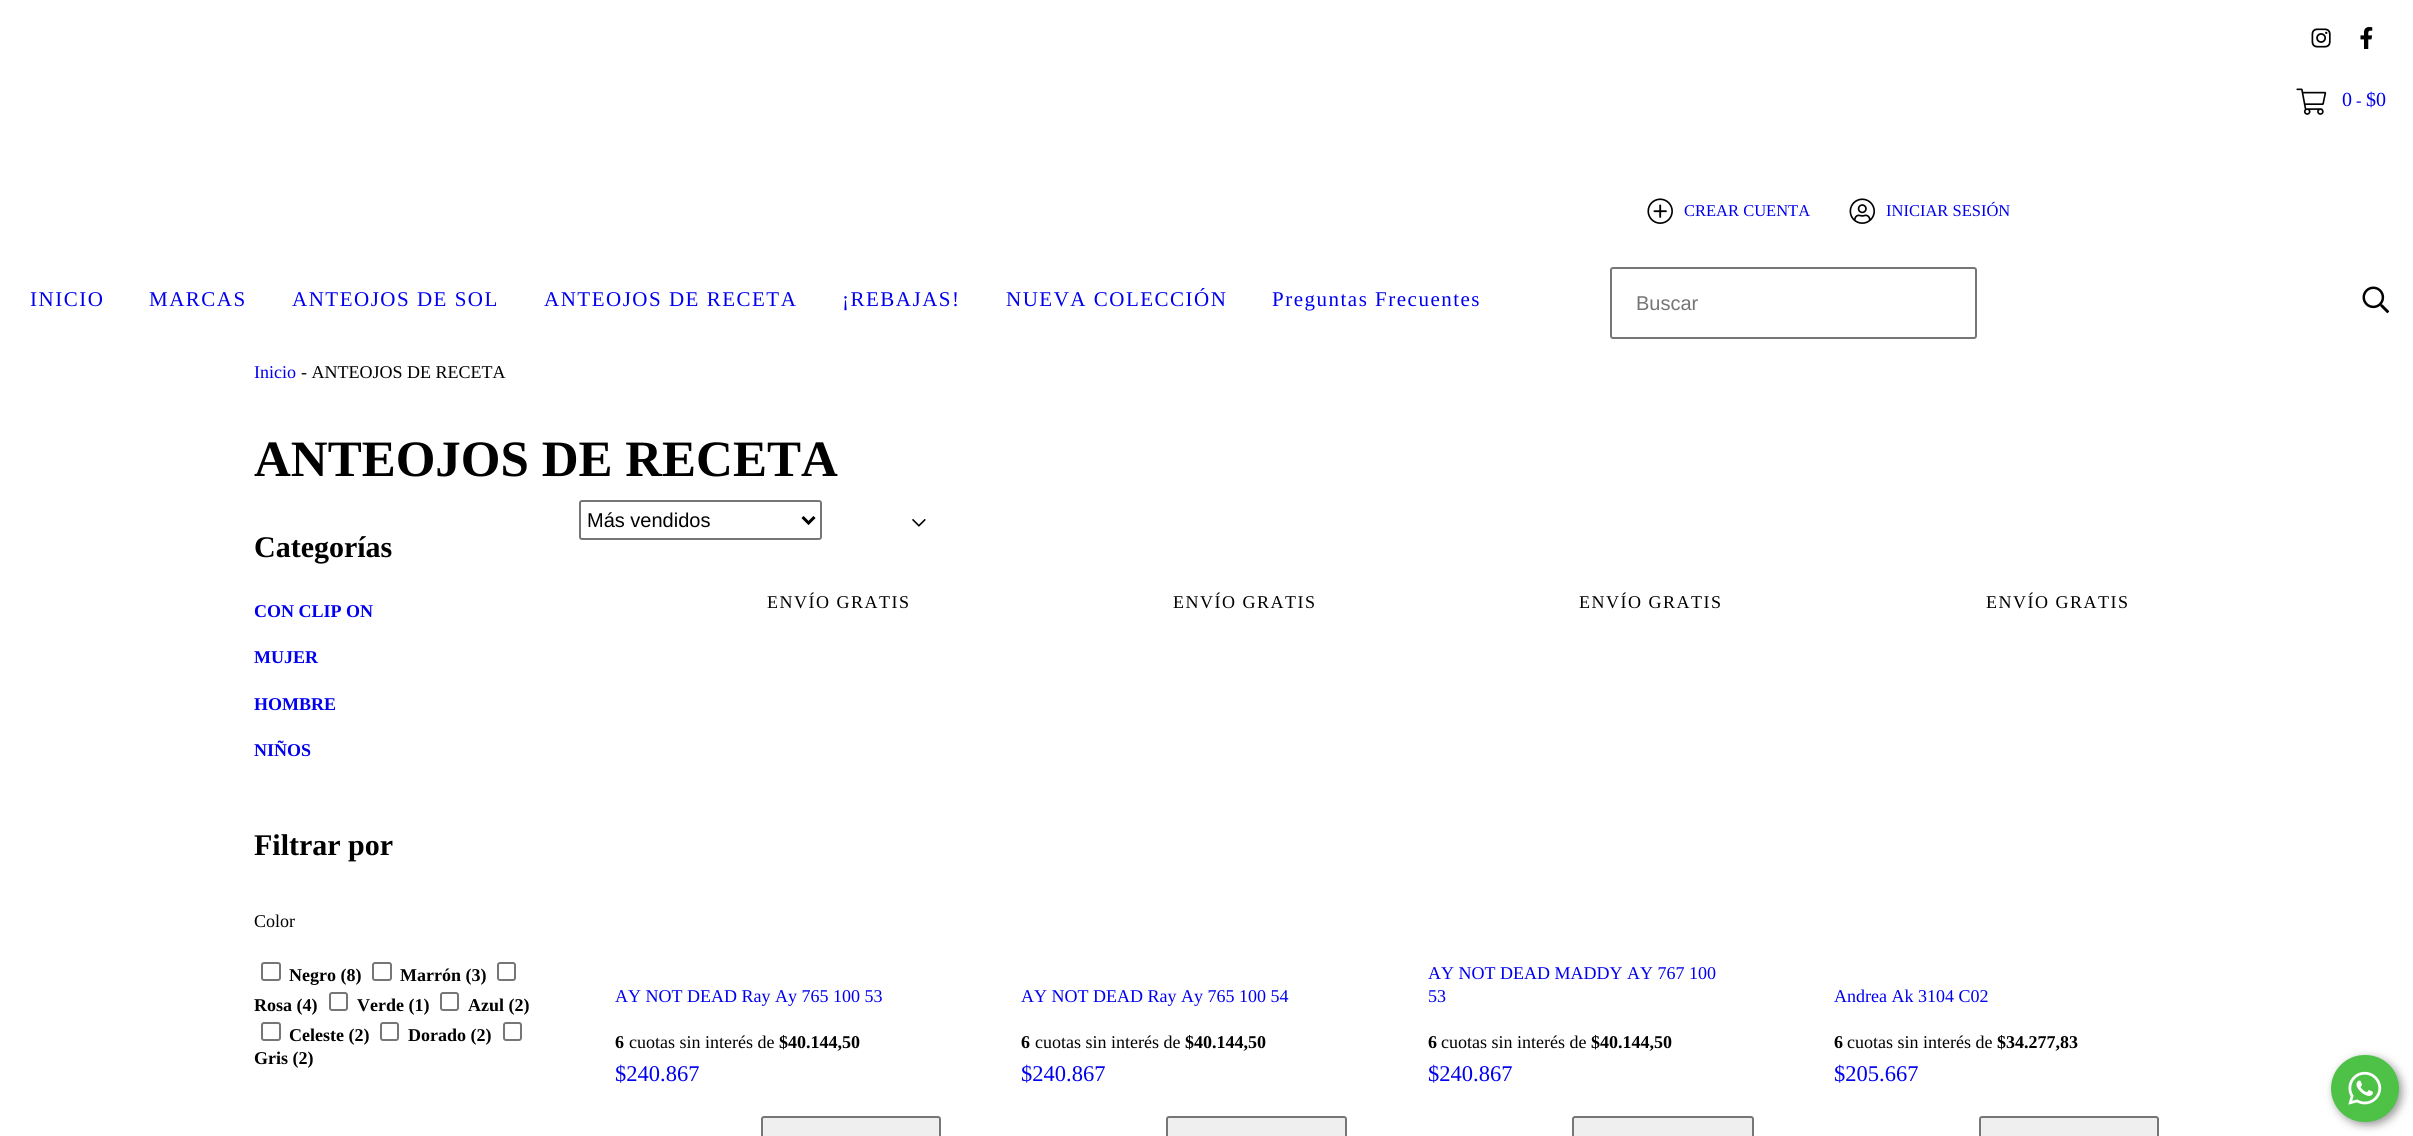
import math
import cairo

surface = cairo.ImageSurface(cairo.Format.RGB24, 2413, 1136)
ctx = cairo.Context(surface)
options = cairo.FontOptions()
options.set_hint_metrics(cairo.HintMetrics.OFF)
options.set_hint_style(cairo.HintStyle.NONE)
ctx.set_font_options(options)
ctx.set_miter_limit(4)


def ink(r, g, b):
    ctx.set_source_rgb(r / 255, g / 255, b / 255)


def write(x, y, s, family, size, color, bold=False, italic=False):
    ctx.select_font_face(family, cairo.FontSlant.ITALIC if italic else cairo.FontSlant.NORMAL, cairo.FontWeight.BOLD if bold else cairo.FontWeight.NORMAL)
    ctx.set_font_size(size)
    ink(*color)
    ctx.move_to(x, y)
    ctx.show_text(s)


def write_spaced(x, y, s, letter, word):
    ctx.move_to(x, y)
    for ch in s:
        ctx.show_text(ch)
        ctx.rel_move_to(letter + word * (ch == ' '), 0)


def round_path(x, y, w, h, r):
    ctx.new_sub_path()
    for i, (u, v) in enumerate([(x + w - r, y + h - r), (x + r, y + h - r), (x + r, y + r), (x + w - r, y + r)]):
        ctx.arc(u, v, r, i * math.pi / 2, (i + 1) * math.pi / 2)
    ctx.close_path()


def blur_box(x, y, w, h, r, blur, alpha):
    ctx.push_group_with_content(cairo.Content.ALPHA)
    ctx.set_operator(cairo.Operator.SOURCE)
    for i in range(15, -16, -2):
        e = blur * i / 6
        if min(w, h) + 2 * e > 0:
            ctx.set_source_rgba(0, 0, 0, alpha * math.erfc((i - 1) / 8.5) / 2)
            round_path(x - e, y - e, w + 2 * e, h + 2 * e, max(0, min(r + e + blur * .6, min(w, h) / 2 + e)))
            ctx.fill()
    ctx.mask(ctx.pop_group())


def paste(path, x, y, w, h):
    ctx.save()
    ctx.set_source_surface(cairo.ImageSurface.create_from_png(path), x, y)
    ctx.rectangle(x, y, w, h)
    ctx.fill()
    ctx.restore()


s1 = dict(family="Liberation Serif", size=20, color=(0, 0, 238))
s2 = dict(family="Liberation Serif", size=16.5, color=(0, 0, 238))
s3 = dict(family="Liberation Sans", size=20, color=(117, 117, 117))
s4 = dict(family="Liberation Serif", size=18, color=(0, 0, 238))
s5 = dict(family="Liberation Serif", size=18, color=(0, 0, 0))
s6 = dict(family="Liberation Serif", size=51, color=(0, 0, 0), bold=True)
s7 = dict(family="Liberation Serif", size=30, color=(0, 0, 0), bold=True)
s8 = dict(family="Liberation Serif", size=18, color=(0, 0, 238), bold=True)
s9 = dict(family="Liberation Serif", size=18, color=(0, 0, 0), bold=True)
s10 = dict(family="Liberation Sans", size=20, color=(0, 0, 0))
s11 = dict(family="Liberation Serif", size=22.5, color=(0, 0, 238))

ink(255, 255, 255)
ctx.paint()
paste("pic1.png", 2311, 28, 20, 20)
paste("pic2.png", 2360, 27, 13, 22)
paste("pic3.png", 2296, 88, 31, 27)
write(2342, 106, "0", **s1)
write(2356, 106, "-", **s2)
write(2366, 106, "$0", **s1)
paste("pic4.png", 1647, 198, 26, 26)
write(1684, 216, "CREAR CUENTA", **s2)
paste("pic5.png", 1849, 198, 26, 26)
write(1886, 216, "INICIAR SESIÓN", **s2)
ctx.set_font_size(21)
write_spaced(30, 306, "INICIO", 1.5, 0)
write_spaced(149, 306, "MARCAS", 1.5, 0)
write_spaced(292, 306, "ANTEOJOS DE SOL", 1.5, 0)
write_spaced(544, 306, "ANTEOJOS DE RECETA", 1.5, 0)
write_spaced(842, 306, "¡REBAJAS!", 1.5, 0)
write_spaced(1006, 306, "NUEVA COLECCIÓN", 1.5, 0)
write_spaced(1272, 306, "Preguntas Frecuentes", 1.5, 0)
round_path(1611, 268, 365, 70, 2)
ink(118, 118, 118)
ctx.stroke()
write(1636, 310, "Buscar", **s3)
paste("pic6.png", 2362, 286, 28, 28)
write(254, 378, "Inicio", **s4)
write(301, 378, "- ANTEOJOS DE RECETA", **s5)
write(254, 476, "ANTEOJOS DE RECETA", **s6)
write(254, 557, "Categorías", **s7)
write(254, 617, "CON CLIP ON", **s8)
write(254, 663, "MUJER", **s8)
write(254, 710, "HOMBRE", **s8)
write(254, 756, "NIÑOS", **s8)
write(254, 855, "Filtrar por", **s7)
write(254, 927, "Color", **s5)
round_path(262, 963, 18, 17, 2)
ink(118, 118, 118)
ctx.stroke()
write(289, 981, "Negro (8)", **s9)
round_path(373, 963, 18, 17, 2)
ink(118, 118, 118)
ctx.stroke()
write(400, 981, "Marrón (3)", **s9)
round_path(498, 963, 17, 17, 2)
ink(118, 118, 118)
ctx.stroke()
write(254, 1011, "Rosa (4)", **s9)
round_path(330, 993, 17, 17, 2)
ink(118, 118, 118)
ctx.stroke()
write(357, 1011, "Verde (1)", **s9)
round_path(441, 993, 17, 17, 2)
ink(118, 118, 118)
ctx.stroke()
write(468, 1011, "Azul (2)", **s9)
round_path(262, 1023, 18, 17, 2)
ink(118, 118, 118)
ctx.stroke()
write(289, 1041, "Celeste (2)", **s9)
round_path(381, 1023, 17, 17, 2)
ink(118, 118, 118)
ctx.stroke()
write(408, 1041, "Dorado (2)", **s9)
round_path(504, 1023, 17, 17, 2)
ink(118, 118, 118)
ctx.stroke()
write(254, 1064, "Gris (2)", **s9)
round_path(580, 501, 241, 38, 2)
ink(118, 118, 118)
ctx.stroke()
ctx.new_path()
ctx.move_to(802.5, 517)
ctx.line_to(808.5, 523)
ctx.line_to(814.5, 517)
ink(0, 0, 0)
ctx.set_line_width(3)
ctx.stroke()
write(587, 527, "Más vendidos", **s10)
paste("pic7.png", 912, 519, 14, 8)
ctx.select_font_face("Liberation Serif")
ctx.set_font_size(18)
write_spaced(767, 608, "ENVÍO GRATIS", 1.5, 0)
write(615, 1002, "AY NOT DEAD Ray Ay 765 100 53", **s4)
write(615, 1048, "6", **s9)
write(629, 1048, "cuotas sin interés de", **s5)
write(779, 1048, "$40.144,50", **s9)
write(615, 1081, "$240.867", **s11)
ink(239, 239, 239)
round_path(762, 1117, 178, 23, 2)
ctx.fill_preserve()
ink(118, 118, 118)
ctx.set_line_width(2)
ctx.stroke()
ctx.set_font_size(18)
ink(0, 0, 0)
write_spaced(1173, 608, "ENVÍO GRATIS", 1.5, 0)
write(1021, 1002, "AY NOT DEAD Ray Ay 765 100 54", **s4)
write(1021, 1048, "6", **s9)
write(1035, 1048, "cuotas sin interés de", **s5)
write(1185, 1048, "$40.144,50", **s9)
write(1021, 1081, "$240.867", **s11)
ink(239, 239, 239)
round_path(1167, 1117, 179, 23, 2)
ctx.fill_preserve()
ink(118, 118, 118)
ctx.stroke()
ctx.set_font_size(18)
ink(0, 0, 0)
write_spaced(1579, 608, "ENVÍO GRATIS", 1.5, 0)
write(1428, 979, "AY NOT DEAD MADDY AY 767 100", **s4)
write(1428, 1002, "53", **s4)
write(1428, 1048, "6", **s9)
write(1441, 1048, "cuotas sin interés de", **s5)
write(1591, 1048, "$40.144,50", **s9)
write(1428, 1081, "$240.867", **s11)
ink(239, 239, 239)
round_path(1573, 1117, 180, 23, 2)
ctx.fill_preserve()
ink(118, 118, 118)
ctx.stroke()
ctx.set_font_size(18)
ink(0, 0, 0)
write_spaced(1986, 608, "ENVÍO GRATIS", 1.5, 0)
write(1834, 1002, "Andrea Ak 3104 C02", **s4)
write(1834, 1048, "6", **s9)
write(1847, 1048, "cuotas sin interés de", **s5)
write(1997, 1048, "$34.277,83", **s9)
write(1834, 1081, "$205.667", **s11)
ink(239, 239, 239)
round_path(1980, 1117, 178, 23, 2)
ctx.fill_preserve()
ink(118, 118, 118)
ctx.stroke()
ink(0, 0, 0)
blur_box(2334, 1058, 68, 67, 33.5, 4.5, 0.4)
ink(77, 194, 71)
round_path(2331, 1055, 68, 67, 33.5)
ctx.fill()
paste("pic8.png", 2348, 1071, 34, 34)
surface.write_to_png("screenshot.png")
